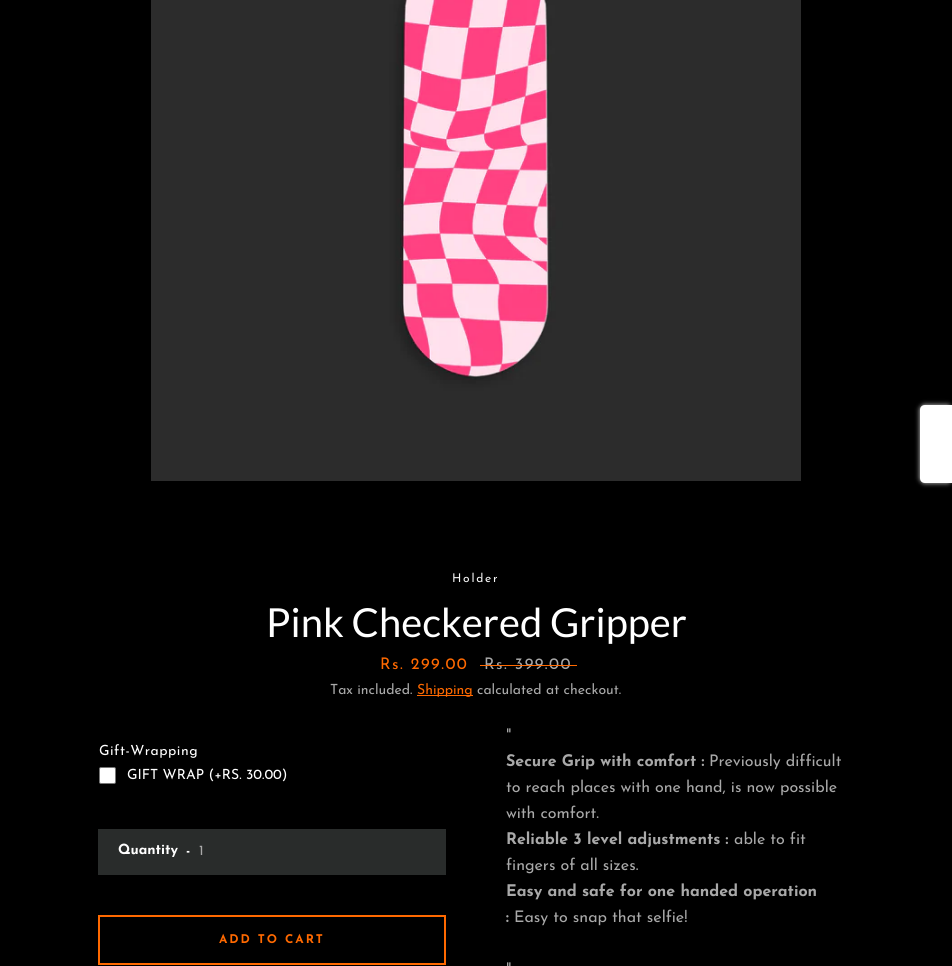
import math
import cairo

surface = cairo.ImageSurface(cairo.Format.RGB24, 952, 966)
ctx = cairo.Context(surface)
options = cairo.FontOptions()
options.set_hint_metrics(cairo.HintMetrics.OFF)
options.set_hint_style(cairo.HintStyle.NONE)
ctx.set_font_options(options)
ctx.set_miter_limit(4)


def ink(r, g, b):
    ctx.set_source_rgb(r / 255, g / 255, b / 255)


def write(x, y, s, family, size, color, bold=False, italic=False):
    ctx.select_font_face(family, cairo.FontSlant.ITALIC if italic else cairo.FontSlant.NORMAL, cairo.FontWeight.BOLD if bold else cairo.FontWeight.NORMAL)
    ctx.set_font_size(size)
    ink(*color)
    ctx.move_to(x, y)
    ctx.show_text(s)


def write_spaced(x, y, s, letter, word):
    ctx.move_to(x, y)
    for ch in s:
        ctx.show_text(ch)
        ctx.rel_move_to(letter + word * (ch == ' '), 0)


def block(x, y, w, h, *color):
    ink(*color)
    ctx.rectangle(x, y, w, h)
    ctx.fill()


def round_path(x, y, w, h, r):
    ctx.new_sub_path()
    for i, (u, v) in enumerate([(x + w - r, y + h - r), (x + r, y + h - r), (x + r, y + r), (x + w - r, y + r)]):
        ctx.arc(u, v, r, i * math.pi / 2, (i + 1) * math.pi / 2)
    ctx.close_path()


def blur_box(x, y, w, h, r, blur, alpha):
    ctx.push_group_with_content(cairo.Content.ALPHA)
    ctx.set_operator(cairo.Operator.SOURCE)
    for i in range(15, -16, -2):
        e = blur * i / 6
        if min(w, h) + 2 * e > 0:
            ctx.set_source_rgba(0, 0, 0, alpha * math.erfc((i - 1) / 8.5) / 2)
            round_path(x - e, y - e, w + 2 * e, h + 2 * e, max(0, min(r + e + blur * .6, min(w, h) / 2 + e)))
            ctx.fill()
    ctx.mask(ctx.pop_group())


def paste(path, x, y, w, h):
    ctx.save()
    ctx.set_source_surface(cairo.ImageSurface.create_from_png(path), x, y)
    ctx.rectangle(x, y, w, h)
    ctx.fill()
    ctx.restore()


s1 = dict(family="Lato", size=40, color=(255, 255, 255))
s2 = dict(family="Josefin Sans", size=14, color=(169, 169, 169))
s3 = dict(family="Josefin Sans", size=14, color=(255, 105, 0))
s4 = dict(family="Josefin Sans", size=14, color=(255, 255, 255))
s5 = dict(family="Josefin Sans", size=14, color=(255, 255, 255), bold=True)
s6 = dict(family="Josefin Sans", size=16, color=(169, 169, 169))
s7 = dict(family="Josefin Sans", size=16, color=(169, 169, 169), bold=True)

ink(0, 0, 0)
ctx.paint()
ink(211, 211, 211)
blur_box(920, 405, 32, 78, 5, 2.5, 1)
ink(255, 255, 255)
ctx.new_path()
ctx.move_to(925, 405)
ctx.line_to(952, 405)
ctx.line_to(952, 483)
ctx.line_to(925, 483)
ctx.curve_to(922, 483, 920, 481, 920, 478)
ctx.line_to(920, 410)
ctx.curve_to(920, 407, 922, 405, 925, 405)
ctx.close_path()
ctx.fill()
paste("pic1.png", 151, 0, 650, 481)
ctx.select_font_face("Josefin Sans")
ctx.set_font_size(12)
ink(245, 245, 245)
write_spaced(452, 582, "Holder", 1.75, 0)
write(266, 637, "Pink Checkered Gripper", **s1)
ctx.select_font_face("Josefin Sans")
ctx.set_font_size(16)
ink(255, 105, 0)
write_spaced(380, 669, "Rs. 299.00", 1.5, 0)
ink(169, 169, 169)
write_spaced(484, 669, "Rs. 399.00", 1.5, 0)
block(480, 665, 97, 1, 255, 105, 0)
write(330, 694, "Tax included.", **s2)
write(417, 694, "Shipping", **s3)
block(417, 695, 56, 1, 255, 105, 0)
write(477, 694, "calculated at checkout.", **s2)
ink(255, 255, 255)
write_spaced(99, 755, "Gift-Wrapping", 0.5, 0)
round_path(99.5, 767.5, 16, 16, 1.5)
ctx.fill_preserve()
ink(118, 118, 118)
ctx.set_line_width(1)
ctx.stroke()
write(127, 779, "GIFT WRAP (+RS. 30.00)", **s4)
block(98, 829, 348, 46, 41, 44, 43)
write(118, 854, "Quantity", **s5)
write(186, 855, "-", **s5)
write(199, 855, "1", **s2)
ctx.rectangle(99, 916, 346, 48)
ink(255, 105, 0)
ctx.set_line_width(2)
ctx.stroke()
ctx.select_font_face("Josefin Sans", cairo.FontSlant.NORMAL, cairo.FontWeight.BOLD)
ctx.set_font_size(12)
write_spaced(219, 943, "ADD TO CART", 2, 0)
write(506, 740, "\"", **s6)
write(506, 766, "Secure Grip with comfort :", **s7)
write(709, 766, "Previously difficult", **s6)
write(506, 792, "to reach places with one hand, is now possible", **s6)
write(506, 818, "with comfort.", **s6)
write(506, 844, "Reliable 3 level adjustments :", **s7)
write(734, 844, "able to fit", **s6)
write(506, 870, "fingers of all sizes.", **s6)
write(506, 896, "Easy and safe for one handed operation", **s7)
write(506, 922, ":", **s7)
write(514, 922, "Easy to snap that selfie!", **s6)
write(506, 974, "\"", **s6)
surface.write_to_png("screenshot.png")
